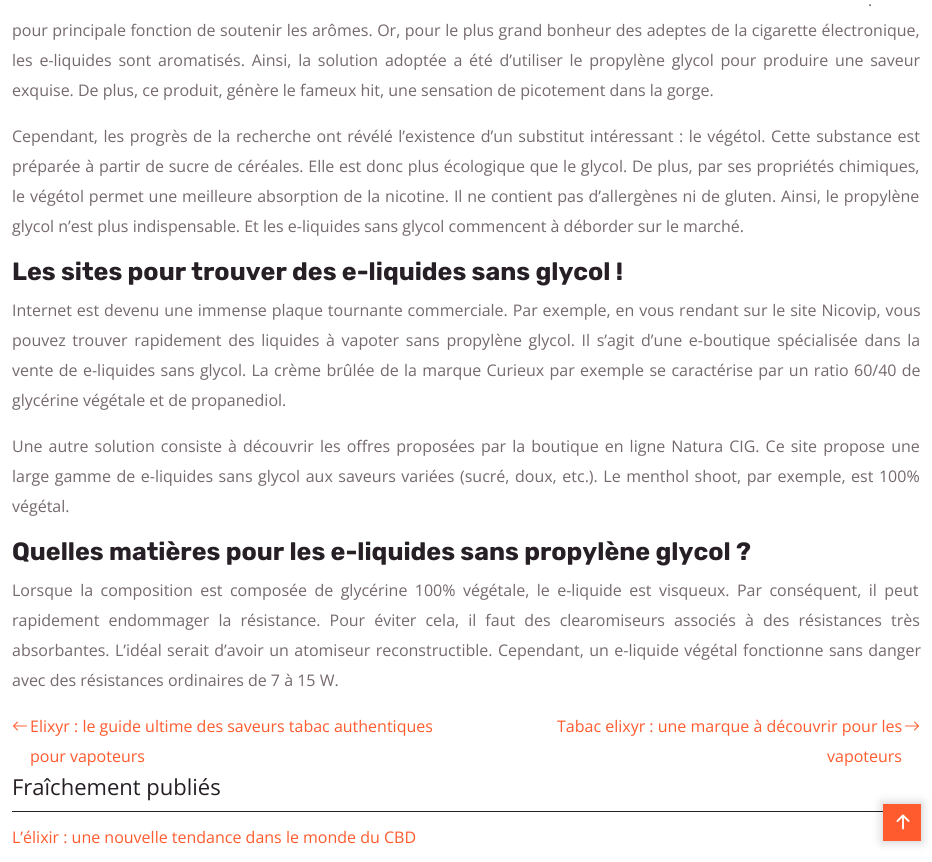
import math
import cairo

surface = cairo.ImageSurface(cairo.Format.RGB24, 932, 862)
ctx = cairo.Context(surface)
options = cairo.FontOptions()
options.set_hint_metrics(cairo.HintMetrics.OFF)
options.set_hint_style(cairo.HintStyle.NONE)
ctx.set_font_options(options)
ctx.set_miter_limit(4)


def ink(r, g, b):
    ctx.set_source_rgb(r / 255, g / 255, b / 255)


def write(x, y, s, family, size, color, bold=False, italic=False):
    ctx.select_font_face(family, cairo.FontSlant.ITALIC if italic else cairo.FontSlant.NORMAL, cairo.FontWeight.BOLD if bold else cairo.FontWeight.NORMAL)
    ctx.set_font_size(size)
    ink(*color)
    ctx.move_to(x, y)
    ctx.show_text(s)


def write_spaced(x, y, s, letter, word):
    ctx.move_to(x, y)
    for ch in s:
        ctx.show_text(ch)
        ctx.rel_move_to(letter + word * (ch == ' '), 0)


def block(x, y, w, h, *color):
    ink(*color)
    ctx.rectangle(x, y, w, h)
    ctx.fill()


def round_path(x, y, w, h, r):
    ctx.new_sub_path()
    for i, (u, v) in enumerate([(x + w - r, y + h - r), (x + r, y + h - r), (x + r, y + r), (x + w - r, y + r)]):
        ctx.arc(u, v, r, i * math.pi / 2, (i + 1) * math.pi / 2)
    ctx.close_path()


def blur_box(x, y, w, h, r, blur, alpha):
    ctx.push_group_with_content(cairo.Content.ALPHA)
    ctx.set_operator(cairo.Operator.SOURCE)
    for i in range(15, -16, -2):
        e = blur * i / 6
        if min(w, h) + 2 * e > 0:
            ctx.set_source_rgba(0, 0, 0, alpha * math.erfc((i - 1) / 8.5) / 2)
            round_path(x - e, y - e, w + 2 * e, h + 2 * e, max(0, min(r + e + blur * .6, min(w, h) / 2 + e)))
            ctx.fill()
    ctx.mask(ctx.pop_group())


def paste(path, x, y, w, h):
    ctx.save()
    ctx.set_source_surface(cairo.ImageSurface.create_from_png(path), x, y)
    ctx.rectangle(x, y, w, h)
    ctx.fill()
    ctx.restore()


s1 = dict(family="Open Sans", size=16, color=(117, 105, 109))
s2 = dict(family="Rubik Light", size=25, color=(38, 31, 37))
s3 = dict(family="Open Sans", size=16, color=(255, 91, 46))
s4 = dict(family="Open Sans", size=22, color=(38, 31, 37))

ink(255, 255, 255)
ctx.paint()
ctx.select_font_face("Open Sans")
ctx.set_font_size(16)
ink(117, 105, 109)
write_spaced(868, 6, ".", 0, 2)
write_spaced(12, 36, "pour principale fonction de soutenir les arômes. Or, pour le plus grand bonheur des adeptes de la cigarette électronique,", 0, 0.4)
write_spaced(12, 66, "les e-liquides sont aromatisés. Ainsi, la solution adoptée a été d’utiliser le propylène glycol pour produire une saveur", 0, 2.6)
write(12, 96, "exquise. De plus, ce produit, génère le fameux hit, une sensation de picotement dans la gorge.", **s1)
write_spaced(12, 142, "Cependant, les progrès de la recherche ont révélé l’existence d’un substitut intéressant : le végétol. Cette substance est", 0, 1.4)
write_spaced(12, 172, "préparée à partir de sucre de céréales. Elle est donc plus écologique que le glycol. De plus, par ses propriétés chimiques,", 0, 0.6)
write_spaced(12, 202, "le végétol permet une meilleure absorption de la nicotine. Il ne contient pas d’allergènes ni de gluten. Ainsi, le propylène", 0, 0.75)
write(12, 232, "glycol n’est plus indispensable. Et les e-liquides sans glycol commencent à déborder sur le marché.", **s1)
write(12, 280, "Les sites pour trouver des e-liquides sans glycol !", **s2)
ctx.select_font_face("Open Sans")
ctx.set_font_size(16)
ink(117, 105, 109)
write_spaced(12, 316, "Internet est devenu une immense plaque tournante commerciale. Par exemple, en vous rendant sur le site Nicovip, vous", 0, 0.7)
write_spaced(12, 346, "pouvez trouver rapidement des liquides à vapoter sans propylène glycol. Il s’agit d’une e-boutique spécialisée dans la", 0, 2.5)
write_spaced(12, 376, "vente de e-liquides sans glycol. La crème brûlée de la marque Curieux par exemple se caractérise par un ratio 60/40 de", 0, 1.2)
write(12, 406, "glycérine végétale et de propanediol.", **s1)
write_spaced(12, 452, "Une autre solution consiste à découvrir les offres proposées par la boutique en ligne Natura CIG. Ce site propose une", 0, 1.9)
write_spaced(12, 482, "large gamme de e-liquides sans glycol aux saveurs variées (sucré, doux, etc.). Le menthol shoot, par exemple, est 100%", 0, 1.4)
write(12, 512, "végétal.", **s1)
write(12, 560, "Quelles matières pour les e-liquides sans propylène glycol ?", **s2)
ctx.select_font_face("Open Sans")
ctx.set_font_size(16)
ink(117, 105, 109)
write_spaced(12, 596, "Lorsque la composition est composée de glycérine 100% végétale, le e-liquide est visqueux. Par conséquent, il peut", 0, 3.25)
write_spaced(12, 626, "rapidement endommager la résistance. Pour éviter cela, il faut des clearomiseurs associés à des résistances très", 0, 4.9)
write_spaced(12, 656, "absorbantes. L’idéal serait d’avoir un atomiseur reconstructible. Cependant, un e-liquide végétal fonctionne sans danger", 0, 1.25)
write(12, 686, "avec des résistances ordinaires de 7 à 15 W.", **s1)
paste("pic1.png", 13, 721, 14, 10)
write(30, 732, "Elixyr : le guide ultime des saveurs tabac authentiques", **s3)
write(30, 762, "pour vapoteurs", **s3)
write(557, 732, "Tabac elixyr : une marque à découvrir pour les", **s3)
paste("pic2.png", 905, 721, 14, 10)
write(827, 762, "vapoteurs", **s3)
block(12, 811, 871, 1, 34, 34, 34)
write(12, 795, "Fraîchement publiés", **s4)
write(12, 843, "L’élixir : une nouvelle tendance dans le monde du CBD", **s3)
ink(0, 0, 0)
blur_box(882, 803, 40, 39, 0, 5, 0.2)
block(883, 804, 38, 37, 255, 91, 46)
paste("pic3.png", 896, 814, 14, 16)
surface.write_to_png("screenshot.png")
